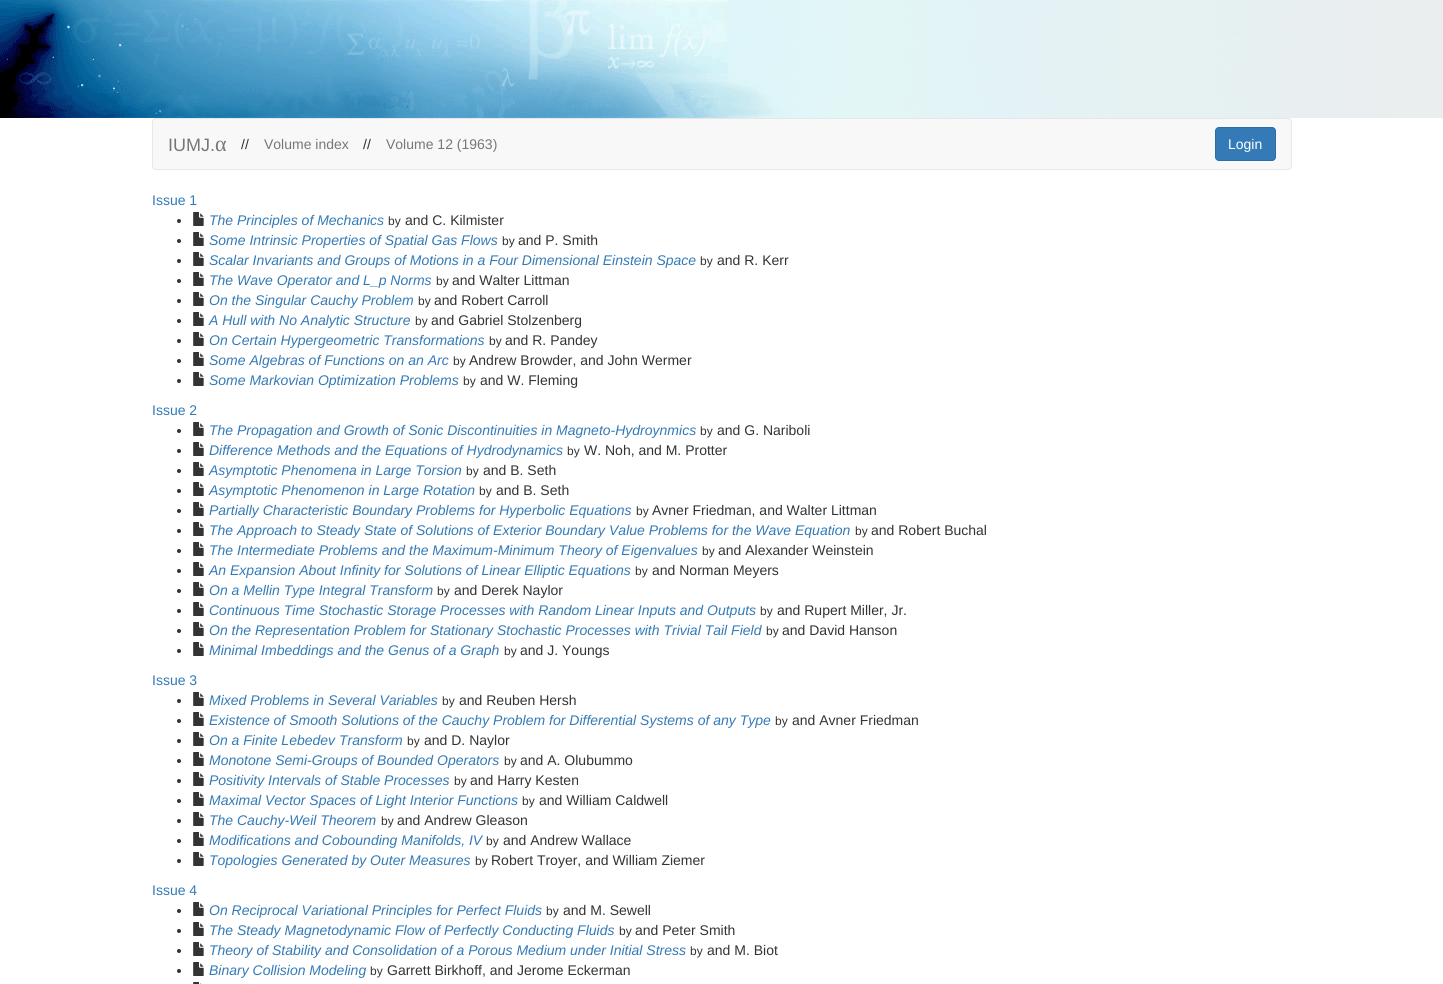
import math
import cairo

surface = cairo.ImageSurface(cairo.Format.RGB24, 1443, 984)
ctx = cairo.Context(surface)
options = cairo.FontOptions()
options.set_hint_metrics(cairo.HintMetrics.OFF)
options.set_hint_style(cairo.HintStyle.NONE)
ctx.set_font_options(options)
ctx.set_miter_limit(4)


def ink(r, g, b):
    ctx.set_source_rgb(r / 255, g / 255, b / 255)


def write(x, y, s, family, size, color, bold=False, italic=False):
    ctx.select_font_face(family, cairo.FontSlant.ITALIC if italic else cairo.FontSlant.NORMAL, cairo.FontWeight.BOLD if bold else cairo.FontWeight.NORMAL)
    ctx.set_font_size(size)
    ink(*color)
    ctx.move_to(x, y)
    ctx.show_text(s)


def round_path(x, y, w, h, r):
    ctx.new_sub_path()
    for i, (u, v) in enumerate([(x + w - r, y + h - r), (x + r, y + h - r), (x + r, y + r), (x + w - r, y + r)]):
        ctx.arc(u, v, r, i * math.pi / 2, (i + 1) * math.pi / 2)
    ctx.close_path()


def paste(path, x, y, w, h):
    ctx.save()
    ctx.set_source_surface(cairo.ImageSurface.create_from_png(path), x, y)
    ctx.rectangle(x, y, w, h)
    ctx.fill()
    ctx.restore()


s1 = dict(family="Liberation Sans", size=18, color=(119, 119, 119))
s2 = dict(family="Liberation Serif", size=22, color=(119, 119, 119))
s3 = dict(family="Liberation Sans", size=14, color=(51, 51, 51))
s4 = dict(family="Liberation Sans", size=14, color=(119, 119, 119))
s5 = dict(family="Liberation Sans", size=14, color=(255, 255, 255))
s6 = dict(family="Liberation Sans", size=14, color=(51, 122, 183))
s7 = dict(family="Liberation Sans", size=14, color=(51, 122, 183), italic=True)
s8 = dict(family="Liberation Sans", size=12, color=(51, 51, 51))

ink(255, 255, 255)
ctx.paint()
paste("pic1.png", 0, 0, 1443, 118)
ink(248, 248, 248)
round_path(152.5, 118.5, 1139, 51, 3.5)
ctx.fill_preserve()
ink(231, 231, 231)
ctx.set_line_width(1)
ctx.stroke()
write(168, 151, "IUMJ.", **s1)
write(215, 151, "α", **s2)
write(241, 149, "//", **s3)
write(264, 149, "Volume index", **s4)
write(363, 149, "//", **s3)
write(386, 149, "Volume 12 (1963)", **s4)
ink(51, 122, 183)
round_path(1215.5, 127.5, 60, 33, 3.5)
ctx.fill_preserve()
ink(46, 109, 164)
ctx.stroke()
write(1228, 149, "Login", **s5)
write(152, 205, "Issue 1", **s6)
ink(51, 51, 51)
ctx.new_path()
ctx.arc(179, 221, 2, 0, 2 * math.pi)
ctx.fill()
paste("pic2.png", 193, 212, 11, 14)
write(209, 225, "The Principles of Mechanics", **s7)
write(388, 225, "by", **s8)
write(405, 225, "and C. Kilmister", **s3)
ctx.new_path()
ctx.arc(179, 241, 2, 0, 2 * math.pi)
ctx.fill()
paste("pic2.png", 193, 232, 11, 14)
write(209, 245, "Some Intrinsic Properties of Spatial Gas Flows", **s7)
write(502, 245, "by", **s8)
write(518, 245, "and P. Smith", **s3)
ctx.new_path()
ctx.arc(179, 261, 2, 0, 2 * math.pi)
ctx.fill()
paste("pic2.png", 193, 252, 11, 14)
write(209, 265, "Scalar Invariants and Groups of Motions in a Four Dimensional Einstein Space", **s7)
write(700, 265, "by", **s8)
write(717, 265, "and R. Kerr", **s3)
ctx.new_path()
ctx.arc(179, 281, 2, 0, 2 * math.pi)
ctx.fill()
paste("pic2.png", 193, 272, 11, 14)
write(209, 285, "The Wave Operator and L_p Norms", **s7)
write(436, 285, "by", **s8)
write(452, 285, "and Walter Littman", **s3)
ctx.new_path()
ctx.arc(179, 301, 2, 0, 2 * math.pi)
ctx.fill()
paste("pic2.png", 193, 292, 11, 14)
write(209, 305, "On the Singular Cauchy Problem", **s7)
write(418, 305, "by", **s8)
write(434, 305, "and Robert Carroll", **s3)
ctx.new_path()
ctx.arc(179, 321, 2, 0, 2 * math.pi)
ctx.fill()
paste("pic2.png", 193, 312, 11, 14)
write(209, 325, "A Hull with No Analytic Structure", **s7)
write(415, 325, "by", **s8)
write(431, 325, "and Gabriel Stolzenberg", **s3)
ctx.new_path()
ctx.arc(179, 341, 2, 0, 2 * math.pi)
ctx.fill()
paste("pic2.png", 193, 332, 11, 14)
write(209, 345, "On Certain Hypergeometric Transformations", **s7)
write(489, 345, "by", **s8)
write(505, 345, "and R. Pandey", **s3)
ctx.new_path()
ctx.arc(179, 361, 2, 0, 2 * math.pi)
ctx.fill()
paste("pic2.png", 193, 352, 11, 14)
write(209, 365, "Some Algebras of Functions on an Arc", **s7)
write(453, 365, "by", **s8)
write(469, 365, "Andrew Browder, and John Wermer", **s3)
ctx.new_path()
ctx.arc(179, 381, 2, 0, 2 * math.pi)
ctx.fill()
paste("pic2.png", 193, 372, 11, 14)
write(209, 385, "Some Markovian Optimization Problems", **s7)
write(463, 385, "by", **s8)
write(480, 385, "and W. Fleming", **s3)
write(152, 415, "Issue 2", **s6)
ink(51, 51, 51)
ctx.new_path()
ctx.arc(179, 431, 2, 0, 2 * math.pi)
ctx.fill()
paste("pic2.png", 193, 422, 11, 14)
write(209, 435, "The Propagation and Growth of Sonic Discontinuities in Magneto-Hydroynmics", **s7)
write(700, 435, "by", **s8)
write(717, 435, "and G. Nariboli", **s3)
ctx.new_path()
ctx.arc(179, 451, 2, 0, 2 * math.pi)
ctx.fill()
paste("pic2.png", 193, 442, 11, 14)
write(209, 455, "Difference Methods and the Equations of Hydrodynamics", **s7)
write(567, 455, "by", **s8)
write(584, 455, "W. Noh, and M. Protter", **s3)
ctx.new_path()
ctx.arc(179, 471, 2, 0, 2 * math.pi)
ctx.fill()
paste("pic2.png", 193, 462, 11, 14)
write(209, 475, "Asymptotic Phenomena in Large Torsion", **s7)
write(466, 475, "by", **s8)
write(483, 475, "and B. Seth", **s3)
ctx.new_path()
ctx.arc(179, 491, 2, 0, 2 * math.pi)
ctx.fill()
paste("pic2.png", 193, 482, 11, 14)
write(209, 495, "Asymptotic Phenomenon in Large Rotation", **s7)
write(479, 495, "by", **s8)
write(496, 495, "and B. Seth", **s3)
ctx.new_path()
ctx.arc(179, 511, 2, 0, 2 * math.pi)
ctx.fill()
paste("pic2.png", 193, 502, 11, 14)
write(209, 515, "Partially Characteristic Boundary Problems for Hyperbolic Equations", **s7)
write(636, 515, "by", **s8)
write(652, 515, "Avner Friedman, and Walter Littman", **s3)
ctx.new_path()
ctx.arc(179, 531, 2, 0, 2 * math.pi)
ctx.fill()
paste("pic2.png", 193, 522, 11, 14)
write(209, 535, "The Approach to Steady State of Solutions of Exterior Boundary Value Problems for the Wave Equation", **s7)
write(855, 535, "by", **s8)
write(871, 535, "and Robert Buchal", **s3)
ctx.new_path()
ctx.arc(179, 551, 2, 0, 2 * math.pi)
ctx.fill()
paste("pic2.png", 193, 542, 11, 14)
write(209, 555, "The Intermediate Problems and the Maximum-Minimum Theory of Eigenvalues", **s7)
write(702, 555, "by", **s8)
write(718, 555, "and Alexander Weinstein", **s3)
ctx.new_path()
ctx.arc(179, 571, 2, 0, 2 * math.pi)
ctx.fill()
paste("pic2.png", 193, 562, 11, 14)
write(209, 575, "An Expansion About Infinity for Solutions of Linear Elliptic Equations", **s7)
write(635, 575, "by", **s8)
write(652, 575, "and Norman Meyers", **s3)
ctx.new_path()
ctx.arc(179, 591, 2, 0, 2 * math.pi)
ctx.fill()
paste("pic2.png", 193, 582, 11, 14)
write(209, 595, "On a Mellin Type Integral Transform", **s7)
write(437, 595, "by", **s8)
write(454, 595, "and Derek Naylor", **s3)
ctx.new_path()
ctx.arc(179, 611, 2, 0, 2 * math.pi)
ctx.fill()
paste("pic2.png", 193, 602, 11, 14)
write(209, 615, "Continuous Time Stochastic Storage Processes with Random Linear Inputs and Outputs", **s7)
write(760, 615, "by", **s8)
write(777, 615, "and Rupert Miller, Jr.", **s3)
ctx.new_path()
ctx.arc(179, 631, 2, 0, 2 * math.pi)
ctx.fill()
paste("pic2.png", 193, 622, 11, 14)
write(209, 635, "On the Representation Problem for Stationary Stochastic Processes with Trivial Tail Field", **s7)
write(766, 635, "by", **s8)
write(782, 635, "and David Hanson", **s3)
ctx.new_path()
ctx.arc(179, 651, 2, 0, 2 * math.pi)
ctx.fill()
paste("pic2.png", 193, 642, 11, 14)
write(209, 655, "Minimal Imbeddings and the Genus of a Graph", **s7)
write(504, 655, "by", **s8)
write(520, 655, "and J. Youngs", **s3)
write(152, 685, "Issue 3", **s6)
ink(51, 51, 51)
ctx.new_path()
ctx.arc(179, 701, 2, 0, 2 * math.pi)
ctx.fill()
paste("pic2.png", 193, 692, 11, 14)
write(209, 705, "Mixed Problems in Several Variables", **s7)
write(442, 705, "by", **s8)
write(459, 705, "and Reuben Hersh", **s3)
ctx.new_path()
ctx.arc(179, 721, 2, 0, 2 * math.pi)
ctx.fill()
paste("pic2.png", 193, 712, 11, 14)
write(209, 725, "Existence of Smooth Solutions of the Cauchy Problem for Differential Systems of any Type", **s7)
write(775, 725, "by", **s8)
write(792, 725, "and Avner Friedman", **s3)
ctx.new_path()
ctx.arc(179, 741, 2, 0, 2 * math.pi)
ctx.fill()
paste("pic2.png", 193, 732, 11, 14)
write(209, 745, "On a Finite Lebedev Transform", **s7)
write(407, 745, "by", **s8)
write(424, 745, "and D. Naylor", **s3)
ctx.new_path()
ctx.arc(179, 761, 2, 0, 2 * math.pi)
ctx.fill()
paste("pic2.png", 193, 752, 11, 14)
write(209, 765, "Monotone Semi-Groups of Bounded Operators", **s7)
write(504, 765, "by", **s8)
write(520, 765, "and A. Olubummo", **s3)
ctx.new_path()
ctx.arc(179, 781, 2, 0, 2 * math.pi)
ctx.fill()
paste("pic2.png", 193, 772, 11, 14)
write(209, 785, "Positivity Intervals of Stable Processes", **s7)
write(454, 785, "by", **s8)
write(470, 785, "and Harry Kesten", **s3)
ctx.new_path()
ctx.arc(179, 801, 2, 0, 2 * math.pi)
ctx.fill()
paste("pic2.png", 193, 792, 11, 14)
write(209, 805, "Maximal Vector Spaces of Light Interior Functions", **s7)
write(522, 805, "by", **s8)
write(539, 805, "and William Caldwell", **s3)
ctx.new_path()
ctx.arc(179, 821, 2, 0, 2 * math.pi)
ctx.fill()
paste("pic2.png", 193, 812, 11, 14)
write(209, 825, "The Cauchy-Weil Theorem", **s7)
write(381, 825, "by", **s8)
write(397, 825, "and Andrew Gleason", **s3)
ctx.new_path()
ctx.arc(179, 841, 2, 0, 2 * math.pi)
ctx.fill()
paste("pic2.png", 193, 832, 11, 14)
write(209, 845, "Modifications and Cobounding Manifolds, IV", **s7)
write(486, 845, "by", **s8)
write(503, 845, "and Andrew Wallace", **s3)
ctx.new_path()
ctx.arc(179, 861, 2, 0, 2 * math.pi)
ctx.fill()
paste("pic2.png", 193, 852, 11, 14)
write(209, 865, "Topologies Generated by Outer Measures", **s7)
write(475, 865, "by", **s8)
write(491, 865, "Robert Troyer, and William Ziemer", **s3)
write(152, 895, "Issue 4", **s6)
ink(51, 51, 51)
ctx.new_path()
ctx.arc(179, 911, 2, 0, 2 * math.pi)
ctx.fill()
paste("pic2.png", 193, 902, 11, 14)
write(209, 915, "On Reciprocal Variational Principles for Perfect Fluids", **s7)
write(546, 915, "by", **s8)
write(563, 915, "and M. Sewell", **s3)
ctx.new_path()
ctx.arc(179, 931, 2, 0, 2 * math.pi)
ctx.fill()
paste("pic2.png", 193, 922, 11, 14)
write(209, 935, "The Steady Magnetodynamic Flow of Perfectly Conducting Fluids", **s7)
write(619, 935, "by", **s8)
write(635, 935, "and Peter Smith", **s3)
ctx.new_path()
ctx.arc(179, 951, 2, 0, 2 * math.pi)
ctx.fill()
paste("pic2.png", 193, 942, 11, 14)
write(209, 955, "Theory of Stability and Consolidation of a Porous Medium under Initial Stress", **s7)
write(690, 955, "by", **s8)
write(707, 955, "and M. Biot", **s3)
ctx.new_path()
ctx.arc(179, 971, 2, 0, 2 * math.pi)
ctx.fill()
paste("pic2.png", 193, 962, 11, 14)
write(209, 975, "Binary Collision Modeling", **s7)
write(370, 975, "by", **s8)
write(387, 975, "Garrett Birkhoff, and Jerome Eckerman", **s3)
paste("pic3.png", 193, 982, 8, 2)
surface.write_to_png("screenshot.png")
